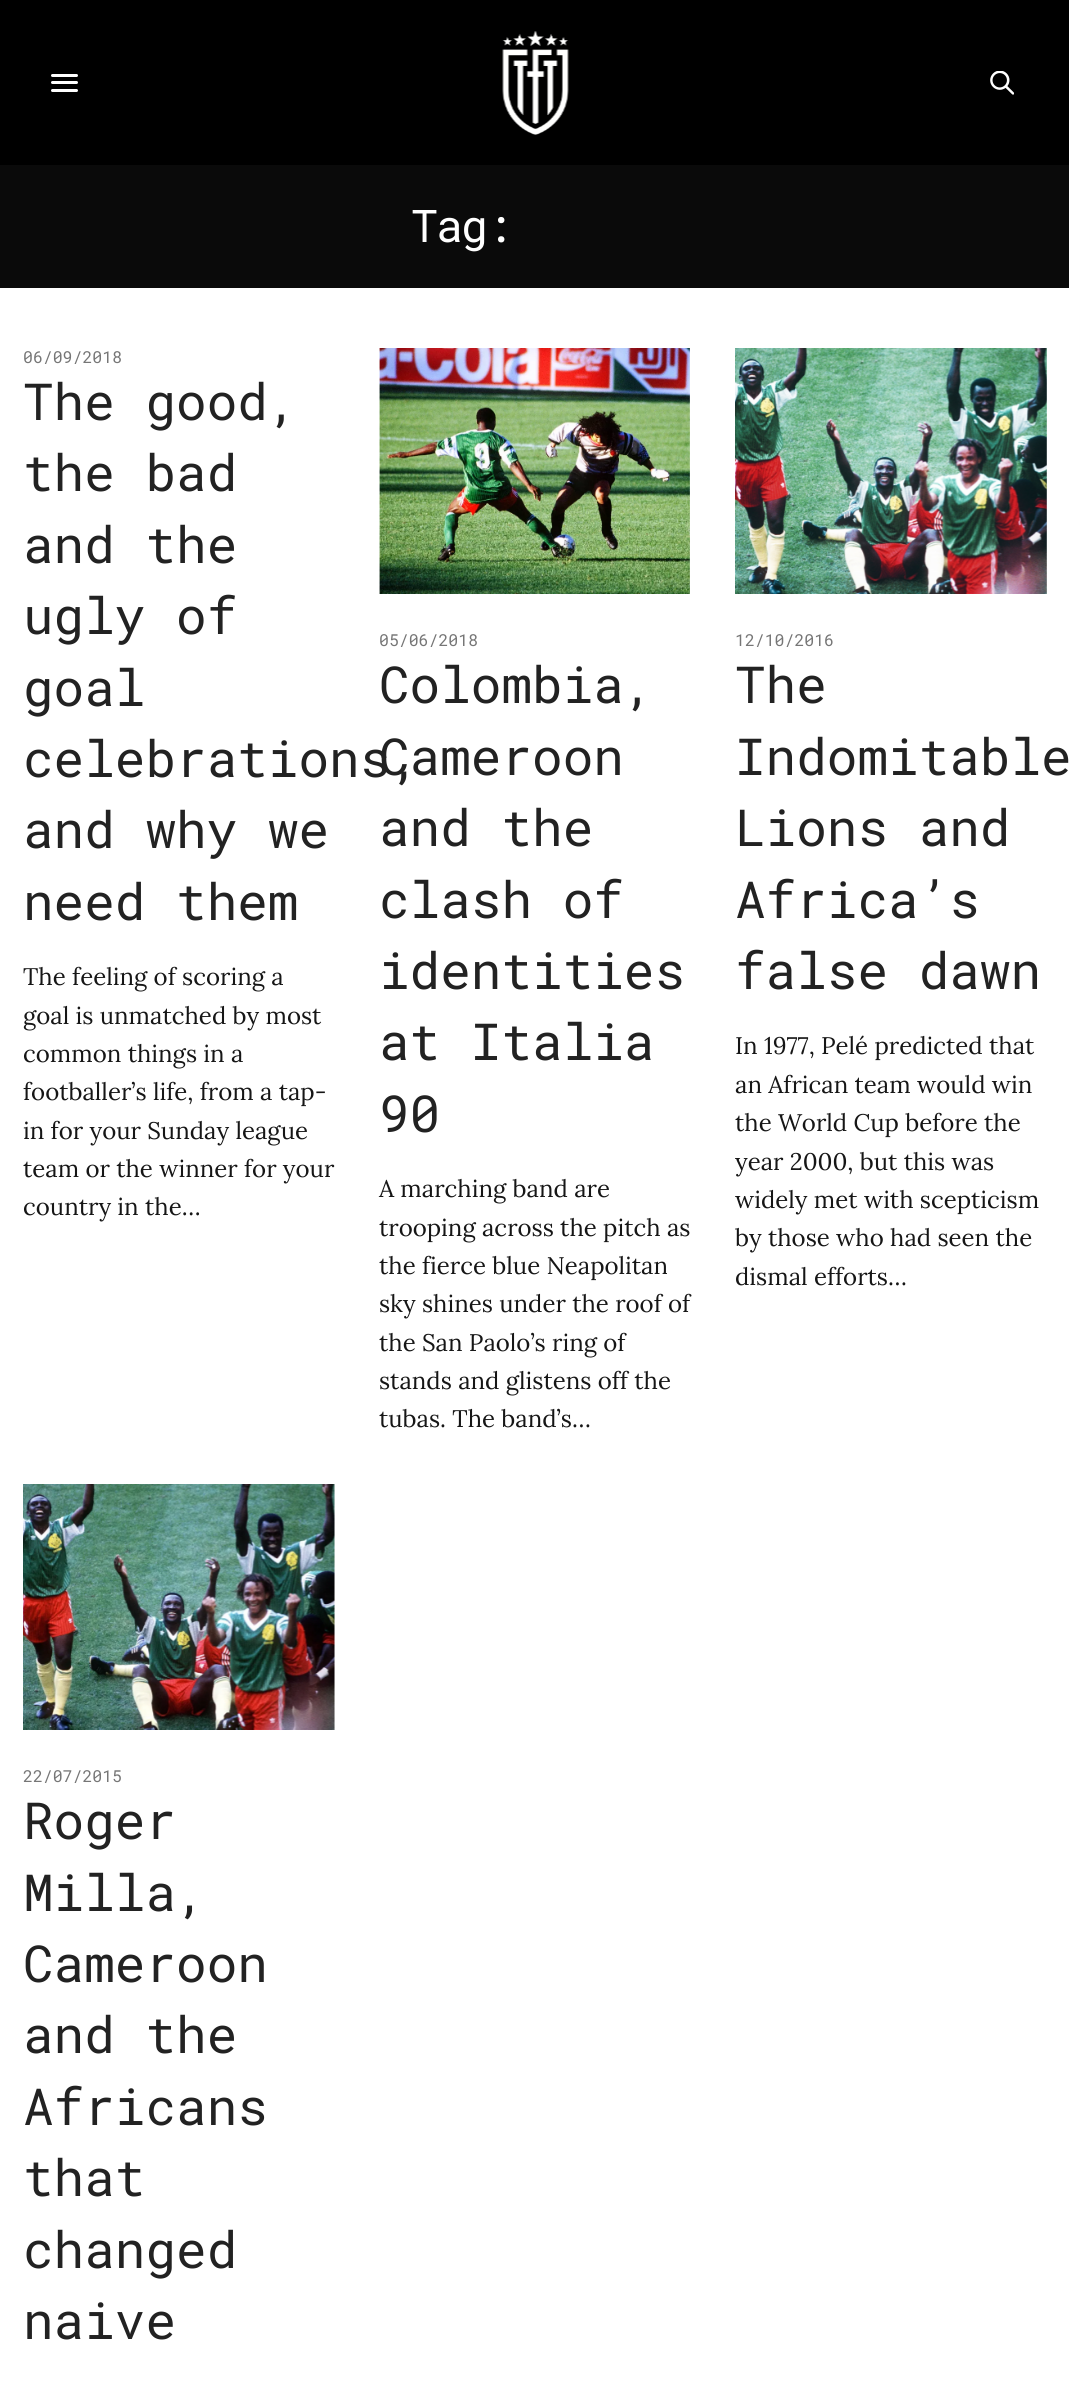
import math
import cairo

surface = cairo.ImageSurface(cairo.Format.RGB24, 1069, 2392)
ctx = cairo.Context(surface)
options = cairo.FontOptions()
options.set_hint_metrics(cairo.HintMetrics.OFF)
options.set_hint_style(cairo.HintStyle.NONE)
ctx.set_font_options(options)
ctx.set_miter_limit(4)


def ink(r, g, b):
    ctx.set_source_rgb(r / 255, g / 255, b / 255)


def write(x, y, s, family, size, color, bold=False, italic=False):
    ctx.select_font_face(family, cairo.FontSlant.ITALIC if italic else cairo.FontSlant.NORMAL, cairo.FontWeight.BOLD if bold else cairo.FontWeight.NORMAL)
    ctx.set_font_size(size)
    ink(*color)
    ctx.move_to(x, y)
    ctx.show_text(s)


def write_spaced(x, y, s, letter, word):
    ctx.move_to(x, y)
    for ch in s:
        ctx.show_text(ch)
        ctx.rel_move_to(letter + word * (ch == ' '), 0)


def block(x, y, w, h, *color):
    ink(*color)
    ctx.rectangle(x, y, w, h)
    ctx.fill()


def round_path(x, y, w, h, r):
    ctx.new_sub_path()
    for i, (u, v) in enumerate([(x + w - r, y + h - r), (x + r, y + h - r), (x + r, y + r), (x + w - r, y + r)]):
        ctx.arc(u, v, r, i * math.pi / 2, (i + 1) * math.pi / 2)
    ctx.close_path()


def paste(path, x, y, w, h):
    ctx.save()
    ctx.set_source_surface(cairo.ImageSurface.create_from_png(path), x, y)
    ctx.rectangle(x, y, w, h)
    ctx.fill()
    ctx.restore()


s1 = dict(family="Roboto Mono", size=16.5, color=(118, 118, 118))
s2 = dict(family="Roboto Mono", size=51, color=(34, 34, 34))
s3 = dict(family="Lora", size=24, color=(22, 22, 22))

ink(255, 255, 255)
ctx.paint()
block(0, 0, 1069, 165, 0, 0, 0)
ink(255, 255, 255)
round_path(51, 74, 27, 3, 1.5)
ctx.fill()
round_path(51, 81, 27, 3, 1.5)
ctx.fill()
round_path(51, 89, 27, 3, 1.5)
ctx.fill()
paste("pic1.png", 502, 31, 67, 104)
paste("pic2.png", 990, 71, 24, 24)
block(0, 165, 1069, 123, 10, 10, 10)
ctx.select_font_face("Roboto Mono")
ctx.set_font_size(45)
ink(255, 255, 255)
write_spaced(411, 242, "Tag:", -2, 0)
write(23, 363, "06/09/2018", **s1)
write(23, 420, "The good,", **s2)
write(23, 491, "the bad", **s2)
write(23, 563, "and the", **s2)
write(23, 634, "ugly of", **s2)
write(23, 706, "goal", **s2)
write(23, 777, "celebrations,", **s2)
write(23, 848, "and why we", **s2)
write(23, 920, "need them", **s2)
write(23, 985, "The feeling of scoring a", **s3)
write(23, 1024, "goal is unmatched by most", **s3)
write(23, 1062, "common things in a", **s3)
write(23, 1100, "footballer’s life, from a tap-", **s3)
write(23, 1139, "in for your Sunday league", **s3)
write(23, 1177, "team or the winner for your", **s3)
write(23, 1215, "country in the…", **s3)
paste("pic3.png", 379, 348, 311, 246)
write(379, 646, "05/06/2018", **s1)
write(379, 703, "Colombia,", **s2)
write(379, 775, "Cameroon", **s2)
write(379, 846, "and the", **s2)
write(379, 918, "clash of", **s2)
write(379, 989, "identities", **s2)
write(379, 1060, "at Italia", **s2)
write(379, 1132, "90", **s2)
write(379, 1197, "A marching band are", **s3)
write(379, 1236, "trooping across the pitch as", **s3)
write(379, 1274, "the fierce blue Neapolitan", **s3)
write(379, 1312, "sky shines under the roof of", **s3)
write(379, 1351, "the San Paolo’s ring of", **s3)
write(379, 1389, "stands and glistens off the", **s3)
write(379, 1427, "tubas. The band’s…", **s3)
paste("pic4.png", 735, 348, 312, 246)
write(735, 646, "12/10/2016", **s1)
write(735, 703, "The", **s2)
write(735, 775, "Indomitable", **s2)
write(735, 846, "Lions and", **s2)
write(735, 918, "Africa’s", **s2)
write(735, 989, "false dawn", **s2)
write(735, 1054, "In 1977, Pelé predicted that", **s3)
write(735, 1093, "an African team would win", **s3)
write(735, 1131, "the World Cup before the", **s3)
write(735, 1170, "year 2000, but this was", **s3)
write(735, 1208, "widely met with scepticism", **s3)
write(735, 1246, "by those who had seen the", **s3)
write(735, 1285, "dismal efforts…", **s3)
paste("pic5.png", 23, 1484, 312, 246)
write(23, 1782, "22/07/2015", **s1)
write(23, 1839, "Roger", **s2)
write(23, 1911, "Milla,", **s2)
write(23, 1982, "Cameroon", **s2)
write(23, 2053, "and the", **s2)
write(23, 2125, "Africans", **s2)
write(23, 2196, "that", **s2)
write(23, 2268, "changed", **s2)
write(23, 2339, "naive", **s2)
surface.write_to_png("screenshot.png")
